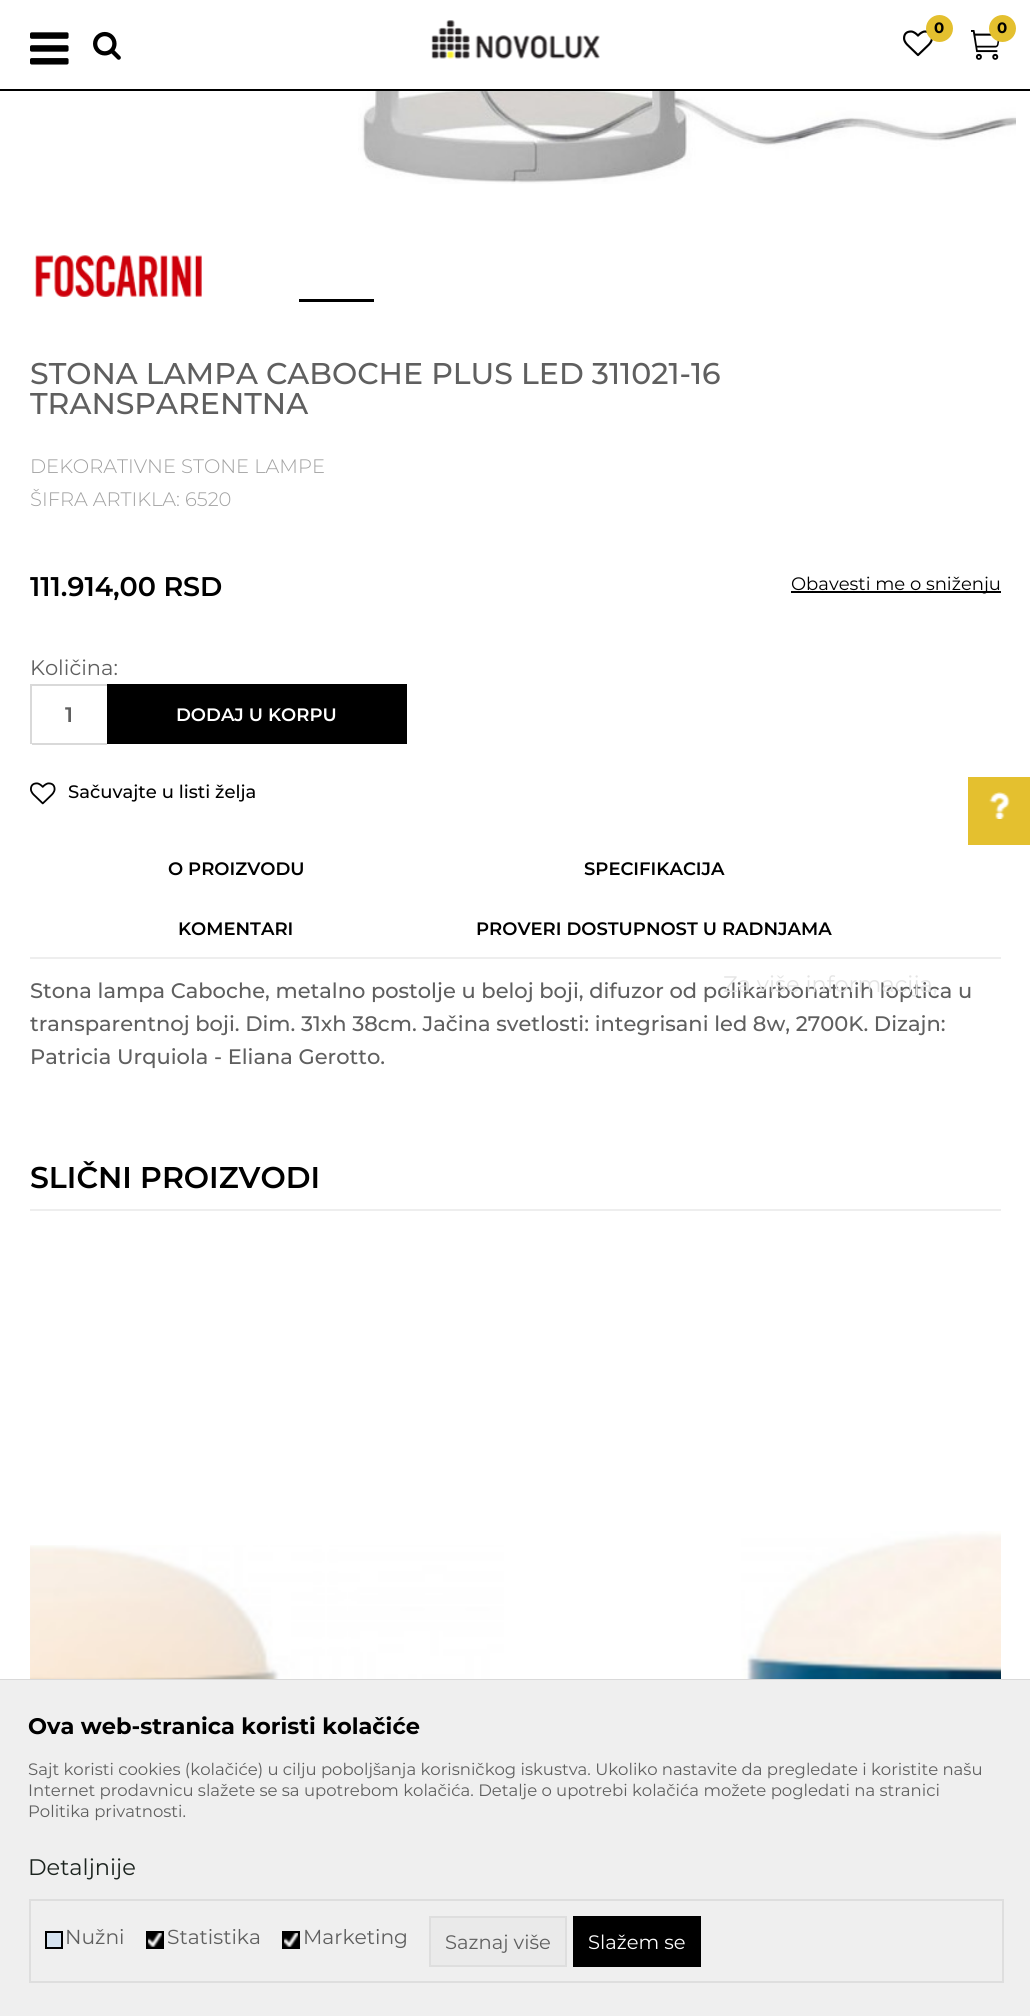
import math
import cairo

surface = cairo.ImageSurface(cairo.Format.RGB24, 1030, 2016)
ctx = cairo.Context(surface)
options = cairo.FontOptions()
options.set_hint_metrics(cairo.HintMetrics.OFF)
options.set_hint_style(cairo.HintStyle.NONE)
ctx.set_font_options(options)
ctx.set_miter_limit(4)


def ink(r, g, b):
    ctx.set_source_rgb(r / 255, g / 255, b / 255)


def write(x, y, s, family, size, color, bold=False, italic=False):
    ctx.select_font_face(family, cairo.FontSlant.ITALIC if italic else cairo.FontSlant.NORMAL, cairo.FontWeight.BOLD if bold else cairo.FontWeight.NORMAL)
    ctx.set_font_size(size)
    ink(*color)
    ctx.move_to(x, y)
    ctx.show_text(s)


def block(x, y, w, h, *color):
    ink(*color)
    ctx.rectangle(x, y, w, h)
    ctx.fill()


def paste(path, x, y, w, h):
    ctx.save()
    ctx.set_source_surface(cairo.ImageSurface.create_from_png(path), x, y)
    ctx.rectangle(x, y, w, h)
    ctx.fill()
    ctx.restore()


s1 = dict(family="Montserrat", size=15, color=(0, 0, 0), bold=True)
s2 = dict(family="Montserrat Medium", size=30, color=(95, 95, 95))
s3 = dict(family="Montserrat Light", size=19.5, color=(161, 161, 161))
s4 = dict(family="Montserrat SemiBold", size=27, color=(0, 0, 0))
s5 = dict(family="Montserrat", size=18, color=(0, 0, 0))
s6 = dict(family="Montserrat", size=21, color=(95, 95, 95))
s7 = dict(family="Montserrat SemiBold", size=21, color=(95, 95, 95))
s8 = dict(family="Montserrat SemiBold", size=18, color=(255, 255, 255))
s9 = dict(family="Montserrat Medium", size=18, color=(0, 0, 0))
s10 = dict(family="Montserrat Medium", size=21, color=(95, 95, 95))
s11 = dict(family="Montserrat", size=22.5, color=(228, 228, 228))
s12 = dict(family="Montserrat SemiBold", size=18, color=(0, 0, 0))
s13 = dict(family="Montserrat SemiBold", size=30, color=(0, 0, 0))
s14 = dict(family="Montserrat", size=22.5, color=(0, 0, 0), bold=True)
s15 = dict(family="Montserrat", size=16.5, color=(95, 95, 95))
s16 = dict(family="Montserrat", size=22.5, color=(27, 35, 30))
s17 = dict(family="Montserrat", size=20.25, color=(95, 95, 95))
s18 = dict(family="Montserrat", size=19.5, color=(95, 95, 95))
s19 = dict(family="Montserrat", size=19.5, color=(255, 255, 255))

ink(255, 255, 255)
ctx.paint()
block(0, 89, 1030, 2, 0, 0, 0)
paste("pic1.png", 431, 20, 169, 39)
paste("pic2.png", 903, 30, 30, 27)
ink(228, 192, 47)
ctx.arc(939.5, 28.5, 13.5, 0, 2 * math.pi)
ctx.fill()
write(934, 33, "0", **s1)
paste("pic3.png", 971, 30, 29, 30)
ink(228, 192, 47)
ctx.arc(1002.5, 28.5, 13.5, 0, 2 * math.pi)
ctx.fill()
write(997, 33, "0", **s1)
paste("pic4.png", 30, 32, 39, 33)
paste("pic5.png", 93, 31, 28, 29)
paste("pic6.png", 35, 255, 167, 42)
paste("pic7.png", 362, 182, 654, 2)
paste("pic8.png", 358, 91, 658, 91)
block(299, 299, 75, 3, 0, 0, 0)
write(30, 384, "STONA LAMPA CABOCHE PLUS LED 311021-16", **s2)
write(30, 414, "TRANSPARENTNA", **s2)
write(30, 473, "DEKORATIVNE STONE LAMPE", **s3)
write(30, 506, "ŠIFRA ARTIKLA: 6520", **s3)
write(30, 596, "111.914,00 RSD", **s4)
block(791, 591, 210, 2, 0, 0, 0)
write(791, 590, "Obavesti me o sniženju", **s5)
write(30, 675, "Količina:", **s6)
block(30, 684, 2, 60, 217, 217, 217)
block(32, 684, 75, 2, 217, 217, 217)
block(32, 743, 75, 2, 217, 217, 217)
write(65, 722, "1", **s7)
block(107, 684, 300, 60, 0, 0, 0)
write(176, 721, "DODAJ U KORPU", **s8)
paste("pic9.png", 30, 782, 26, 23)
write(68, 798, "Sačuvajte u listi želja", **s9)
block(968, 777, 62, 68, 228, 192, 47)
paste("pic10.png", 989, 792, 21, 27)
write(30, 998, "Stona lampa Caboche, metalno postolje u beloj boji, difuzor od polikarbonatnih loptica u", **s10)
write(723, 992, "Za više informacija,", **s11)
block(30, 957, 971, 2, 238, 238, 238)
write(168, 875, "O PROIZVODU", **s12)
write(584, 875, "SPECIFIKACIJA", **s12)
write(178, 935, "KOMENTARI", **s12)
write(476, 935, "PROVERI DOSTUPNOST U RADNJAMA", **s12)
write(30, 1031, "transparentnoj boji. Dim. 31xh 38cm. Jačina svetlosti: integrisani led 8w, 2700K. Dizajn:", **s10)
write(30, 1064, "Patricia Urquiola - Eliana Gerotto.", **s10)
block(30, 1209, 971, 2, 238, 238, 238)
write(30, 1188, "SLIČNI PROIZVODI", **s13)
paste("pic11.png", 30, 1545, 476, 134)
paste("pic12.png", 741, 1531, 260, 148)
ctx.rectangle(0, 1680, 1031, 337)
ink(217, 217, 217)
ctx.stroke()
block(0, 1680, 1030, 336, 239, 239, 239)
write(28, 1734, "Ova web-stranica koristi kolačiće", **s14)
write(28, 1775, "Sajt koristi cookies (kolačiće) u cilju poboljšanja korisničkog iskustva. Ukoliko nastavite da pregledate i koristite našu", **s15)
write(28, 1796, "Internet prodavnicu slažete se sa upotrebom kolačića. Detalje o upotrebi kolačića možete pogledati na stranici", **s15)
write(28, 1817, "Politika privatnosti.", **s15)
write(28, 1875, "Detaljnije", **s16)
ctx.rectangle(30, 1900, 973, 82)
ink(222, 222, 222)
ctx.stroke()
ink(214, 227, 240)
ctx.rectangle(46, 1932, 16, 16)
ctx.fill_preserve()
ink(0, 0, 0)
ctx.stroke()
write(65, 1944, "Nužni", **s17)
block(148, 1933, 14, 14, 0, 0, 0)
paste("pic13.png", 148, 1933, 14, 14)
ctx.rectangle(147, 1932, 16, 16)
ctx.stroke()
write(167, 1944, "Statistika", **s17)
block(284, 1933, 14, 14, 0, 0, 0)
paste("pic14.png", 284, 1933, 14, 14)
ctx.rectangle(283, 1932, 16, 16)
ctx.stroke()
write(303, 1944, "Marketing", **s17)
ink(234, 234, 234)
ctx.rectangle(430, 1917, 136, 49)
ctx.fill_preserve()
ink(222, 222, 222)
ctx.stroke()
write(445, 1949, "Saznaj više", **s18)
block(573, 1916, 128, 51, 0, 0, 0)
write(588, 1949, "Slažem se", **s19)
surface.write_to_png("screenshot.png")
